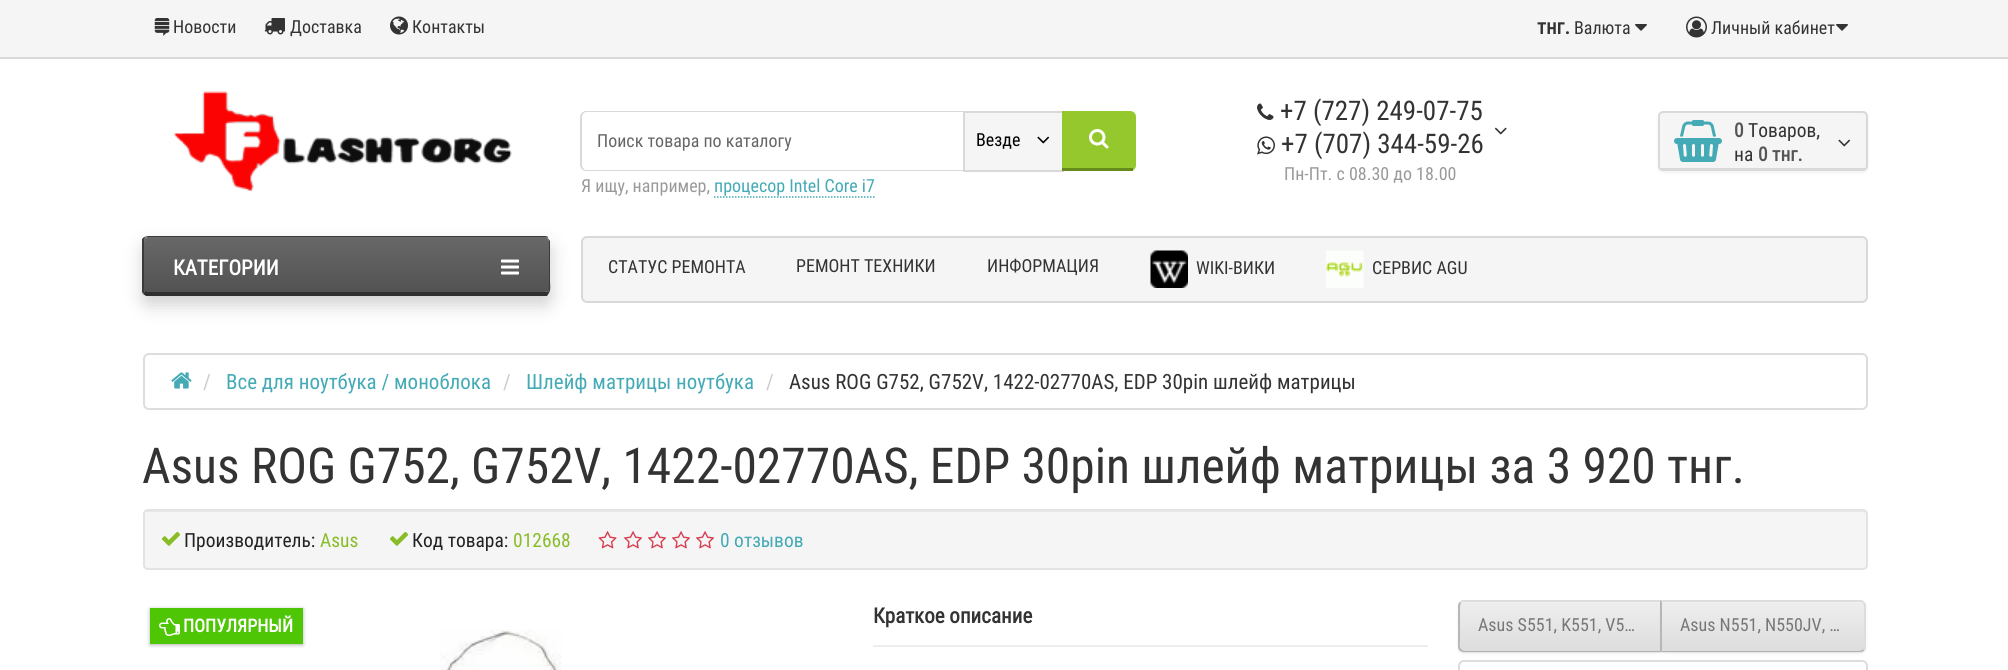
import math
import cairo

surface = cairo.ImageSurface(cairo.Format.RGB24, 2008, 670)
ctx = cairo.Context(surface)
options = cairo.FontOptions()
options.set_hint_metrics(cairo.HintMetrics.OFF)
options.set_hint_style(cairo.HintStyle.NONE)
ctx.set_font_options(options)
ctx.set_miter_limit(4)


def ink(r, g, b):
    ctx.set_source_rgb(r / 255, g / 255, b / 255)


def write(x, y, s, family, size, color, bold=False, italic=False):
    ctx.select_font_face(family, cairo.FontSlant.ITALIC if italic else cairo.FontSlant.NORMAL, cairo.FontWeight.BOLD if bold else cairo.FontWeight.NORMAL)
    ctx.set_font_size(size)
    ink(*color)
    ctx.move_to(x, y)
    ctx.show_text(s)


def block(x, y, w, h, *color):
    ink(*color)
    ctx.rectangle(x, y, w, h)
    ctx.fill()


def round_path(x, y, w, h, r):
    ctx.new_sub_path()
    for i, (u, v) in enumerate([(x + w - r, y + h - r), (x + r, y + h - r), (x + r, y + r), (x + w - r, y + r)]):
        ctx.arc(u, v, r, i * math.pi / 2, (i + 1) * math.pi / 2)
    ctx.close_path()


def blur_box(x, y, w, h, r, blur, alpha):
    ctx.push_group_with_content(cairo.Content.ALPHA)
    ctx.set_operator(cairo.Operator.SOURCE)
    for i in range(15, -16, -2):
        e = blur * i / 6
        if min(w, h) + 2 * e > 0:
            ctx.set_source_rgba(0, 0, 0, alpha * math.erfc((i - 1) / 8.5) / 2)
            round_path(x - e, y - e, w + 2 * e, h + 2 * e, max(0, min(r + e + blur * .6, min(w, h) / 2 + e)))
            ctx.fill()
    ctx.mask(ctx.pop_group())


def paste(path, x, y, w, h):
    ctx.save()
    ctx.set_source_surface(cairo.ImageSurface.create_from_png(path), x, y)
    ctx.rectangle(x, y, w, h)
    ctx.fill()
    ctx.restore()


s1 = dict(family="Roboto Condensed", size=18, color=(51, 51, 51))
s2 = dict(family="Roboto Condensed", size=21, color=(51, 51, 51), bold=True)
s3 = dict(family="Roboto Condensed", size=18, color=(102, 102, 102))
s4 = dict(family="Roboto Condensed", size=18, color=(0, 0, 0))
s5 = dict(family="Roboto Condensed", size=18, color=(153, 153, 153))
s6 = dict(family="Roboto Condensed", size=18, color=(67, 170, 182))
s7 = dict(family="Roboto Condensed", size=27, color=(51, 51, 51))
s8 = dict(family="Roboto Condensed", size=19.5, color=(85, 85, 85), bold=True)
s9 = dict(family="Roboto Condensed", size=19.5, color=(51, 51, 51))
s10 = dict(family="Roboto Condensed", size=21, color=(255, 255, 255), bold=True)
s11 = dict(family="Roboto Condensed", size=21, color=(204, 204, 204))
s12 = dict(family="Roboto Condensed", size=21, color=(67, 170, 182))
s13 = dict(family="Roboto Condensed", size=21, color=(51, 51, 51))
s14 = dict(family="Roboto Condensed", size=49.5, color=(51, 51, 51))
s15 = dict(family="Roboto Condensed", size=19.5, color=(34, 34, 34))
s16 = dict(family="Roboto Condensed", size=19.5, color=(137, 189, 39))
s17 = dict(family="Roboto Condensed", size=19.5, color=(67, 170, 182))
s18 = dict(family="Roboto Condensed", size=18, color=(255, 255, 255), bold=True)
s19 = dict(family="Roboto Condensed", size=18, color=(119, 119, 119))

ink(255, 255, 255)
ctx.paint()
block(0, 0, 2008, 57, 245, 245, 245)
block(0, 57, 2008, 2, 217, 217, 217)
paste("pic1.png", 154, 18, 16, 18)
write(173, 33, "Новости", **s1)
paste("pic2.png", 264, 18, 21, 17)
write(290, 33, "Доставка", **s1)
paste("pic3.png", 390, 16, 18, 19)
write(412, 33, "Контакты", **s1)
write(1537, 34, "тнг.", **s2)
write(1574, 34, "Валюта", **s1)
paste("pic4.png", 1635, 24, 12, 7)
paste("pic5.png", 1686, 16, 21, 22)
write(1711, 34, "Личный кабинет", **s1)
paste("pic4.png", 1836, 24, 12, 7)
paste("pic6.png", 173, 91, 339, 101)
ink(217, 217, 217)
ctx.set_fill_rule(cairo.FillRule.EVEN_ODD)
ctx.new_path()
ctx.move_to(586, 111)
ctx.line_to(963, 111)
ctx.line_to(963, 171)
ctx.line_to(586, 171)
ctx.curve_to(583, 171, 580, 168, 580, 165)
ctx.line_to(580, 117)
ctx.curve_to(580, 114, 583, 111, 586, 111)
ctx.close_path()
ctx.move_to(586, 112)
ctx.line_to(963, 112)
ctx.line_to(963, 170)
ctx.line_to(586, 170)
ctx.curve_to(584, 170, 582, 167, 582, 165)
ctx.line_to(582, 117)
ctx.curve_to(582, 115, 584, 112, 586, 112)
ctx.close_path()
ctx.fill()
write(597, 147, "Поиск товара по каталогу", **s3)
block(965, 113, 97, 57, 245, 245, 245)
block(963, 111, 101, 2, 217, 217, 217)
block(963, 170, 101, 2, 217, 217, 217)
block(963, 111, 2, 60, 217, 217, 217)
write(976, 146, "Везде", **s4)
paste("pic7.png", 1037, 136, 13, 8)
ink(148, 200, 44)
ctx.new_path()
ctx.move_to(1062, 111)
ctx.line_to(1130, 111)
ctx.curve_to(1133.5, 111, 1136, 113.5, 1136, 117)
ctx.line_to(1136, 165)
ctx.curve_to(1136, 168.5, 1133.5, 171, 1130, 171)
ctx.line_to(1062, 171)
ctx.close_path()
ctx.fill()
block(1062, 168, 71, 3, 101, 139, 29)
paste("pic8.png", 1089, 129, 20, 20)
write(581, 192, "Я ищу, например,", **s5)
write(714, 192, "процесор Intel Core i7", **s6)
ctx.new_path()
ctx.move_to(714, 197)
ctx.line_to(874.5, 197)
ctx.set_line_width(1.5)
ctx.set_dash([1.5, 1.5])
ctx.stroke()
paste("pic9.png", 1257, 103, 17, 17)
write(1280, 120, "+7 (727) 249-07-75", **s7)
paste("pic10.png", 1257, 136, 18, 19)
write(1281, 153, "+7 (707) 344-59-26", **s7)
paste("pic11.png", 1494, 127, 13, 8)
write(1284, 180, "Пн-Пт. с 08.30 до 18.00", **s5)
ink(0, 0, 0)
blur_box(1658, 113, 210, 60, 5, 1.5, 0.05)
ink(245, 245, 245)
ctx.set_fill_rule(cairo.FillRule.WINDING)
ctx.new_path()
ctx.move_to(1662, 112)
ctx.line_to(1863, 112)
ctx.curve_to(1865, 112, 1866, 114, 1866, 116)
ctx.line_to(1866, 166)
ctx.curve_to(1866, 167, 1865, 168, 1863, 168)
ctx.line_to(1662, 168)
ctx.curve_to(1660, 168, 1659, 167, 1659, 166)
ctx.line_to(1659, 116)
ctx.curve_to(1659, 114, 1660, 112, 1662, 112)
ctx.close_path()
ctx.fill()
round_path(1659, 112, 208, 58, 4)
ink(217, 217, 217)
ctx.set_line_width(2)
ctx.set_dash([])
ctx.stroke()
block(1661, 168, 205, 1, 217, 217, 217)
paste("pic12.png", 1674, 120, 48, 42)
write(1734, 137, "0", **s8)
write(1748, 137, "Tоваров,", **s9)
write(1734, 161, "на", **s9)
write(1758, 161, "0 тнг.", **s8)
paste("pic13.png", 1838, 139, 13, 8)
ink(0, 0, 0)
blur_box(143, 245, 408, 60, 6, 9, 0.18)
gradient = cairo.LinearGradient(347, 237, 347, 293)
gradient.add_color_stop_rgba(0, 0.408, 0.408, 0.408, 1)
gradient.add_color_stop_rgba(1, 0.322, 0.322, 0.322, 1)
ctx.set_source(gradient)
ctx.new_path()
ctx.move_to(148, 237)
ctx.line_to(544, 237)
ctx.curve_to(547, 237, 549, 239, 549, 242)
ctx.line_to(549, 290)
ctx.curve_to(549, 291, 547, 292, 544, 292)
ctx.line_to(148, 292)
ctx.curve_to(146, 292, 144, 291, 144, 290)
ctx.line_to(144, 242)
ctx.curve_to(144, 239, 146, 237, 148, 237)
ctx.close_path()
ctx.fill()
ink(59, 59, 59)
ctx.new_path()
ctx.move_to(148, 236)
ctx.line_to(144, 237)
ctx.line_to(145, 238)
ctx.curve_to(146, 237, 147, 237, 148, 237)
ctx.line_to(544, 237)
ctx.curve_to(546, 237, 547, 238, 548, 238)
ctx.curve_to(548, 236, 546, 236, 544, 236)
ctx.close_path()
ctx.fill()
ctx.new_path()
ctx.move_to(549, 293)
ctx.curve_to(551, 290, 550, 284, 550, 282)
ctx.line_to(550, 241)
ctx.line_to(548, 238)
ctx.curve_to(548, 239, 549, 240, 549, 242)
ctx.line_to(549, 290)
ctx.line_to(548, 291)
ctx.close_path()
ctx.fill()
ink(48, 48, 48)
ctx.new_path()
ctx.move_to(146, 296)
ctx.line_to(143, 294)
ctx.line_to(145, 291)
ctx.line_to(148, 292)
ctx.line_to(280, 292)
ctx.line_to(546, 292)
ctx.line_to(548, 291)
ctx.line_to(549, 293)
ctx.line_to(547, 296)
ctx.close_path()
ctx.fill()
ink(59, 59, 59)
ctx.new_path()
ctx.move_to(142, 239)
ctx.line_to(144, 237)
ctx.line_to(145, 238)
ctx.curve_to(145, 239, 144, 240, 144, 242)
ctx.line_to(144, 290)
ctx.line_to(145, 291)
ctx.line_to(143, 294)
ctx.line_to(142, 292)
ctx.close_path()
ctx.fill()
write(173, 275, "КАТЕГОРИИ", **s10)
paste("pic14.png", 501, 259, 18, 16)
ink(245, 245, 245)
round_path(582, 237, 1285, 65, 5)
ctx.fill_preserve()
ink(217, 217, 217)
ctx.stroke()
write(608, 273, "СТАТУС РЕМОНТА", **s1)
write(796, 272, "РЕМОНТ ТЕХНИКИ", **s1)
write(987, 272, "ИНФОРМАЦИЯ", **s1)
paste("pic15.png", 1150, 250, 38, 38)
write(1196, 274, "WIKI-ВИКИ", **s1)
paste("pic16.png", 1326, 250, 38, 38)
write(1372, 274, "СЕРВИС AGU", **s1)
round_path(144, 354, 1723, 55, 5)
ink(221, 221, 221)
ctx.stroke()
paste("pic17.png", 171, 372, 21, 17)
write(203, 389, "/", **s11)
write(226, 389, "Все для ноутбука / моноблока", **s12)
write(503, 389, "/", **s11)
write(526, 389, "Шлейф матрицы ноутбука", **s12)
write(766, 389, "/", **s11)
write(789, 389, "Asus ROG G752, G752V, 1422-02770AS, EDP 30pin шлейф матрицы", **s13)
write(142, 483, "Asus ROG G752, G752V, 1422-02770AS, EDP 30pin шлейф матрицы за 3 920 тнг.", **s14)
ink(245, 245, 245)
round_path(143, 509, 1725, 61, 5)
ctx.fill()
ink(233, 233, 233)
ctx.new_path()
ctx.move_to(147, 512)
ctx.line_to(1863, 512)
ctx.curve_to(1865, 512, 1866, 513, 1866, 514)
ctx.line_to(1866, 513)
ctx.curve_to(1866, 511, 1865, 510, 1863, 510)
ctx.line_to(147, 510)
ctx.curve_to(145, 510, 144, 511, 144, 513)
ctx.line_to(144, 514)
ctx.curve_to(144, 513, 145, 512, 147, 512)
ctx.close_path()
ctx.fill()
round_path(144, 510, 1723, 59, 4)
ink(227, 227, 227)
ctx.stroke()
paste("pic18.png", 161, 531, 20, 15)
write(184, 547, "Производитель:", **s15)
write(320, 547, "Asus", **s16)
paste("pic18.png", 389, 531, 20, 15)
write(412, 547, "Код товара:", **s15)
write(513, 547, "012668", **s16)
paste("pic19.png", 598, 531, 19, 18)
paste("pic20.png", 624, 531, 19, 18)
paste("pic20.png", 648, 531, 19, 18)
paste("pic20.png", 672, 531, 19, 18)
paste("pic20.png", 696, 531, 19, 18)
write(720, 547, "0 отзывов", **s17)
ink(0, 0, 0)
blur_box(150, 609, 153, 36, 0, 2, 0.3)
block(150, 608, 153, 36, 79, 198, 5)
paste("pic21.png", 159, 618, 21, 18)
write(183, 632, "ПОПУЛЯРНЫЙ", **s18)
paste("pic22.png", 440, 629, 122, 41)
write(873, 623, "Краткое описание", **s2)
block(873, 645, 555, 2, 238, 238, 238)
ink(0, 0, 0)
blur_box(1458, 602, 204, 52, 6, 1.5, 0.05)
ink(231, 231, 231)
ctx.new_path()
ctx.move_to(1464, 600)
ctx.line_to(1662, 600)
ctx.line_to(1662, 653)
ctx.line_to(1464, 653)
ctx.curve_to(1460.5, 653, 1458, 650.5, 1458, 647)
ctx.line_to(1458, 606)
ctx.curve_to(1458, 602.5, 1460.5, 600, 1464, 600)
ctx.close_path()
ctx.fill()
ctx.save()
ctx.new_path()
ctx.move_to(1464, 600)
ctx.line_to(1662, 600)
ctx.line_to(1662, 653)
ctx.line_to(1464, 653)
ctx.curve_to(1460.5, 653, 1458, 650.5, 1458, 647)
ctx.line_to(1458, 606)
ctx.curve_to(1458, 602.5, 1460.5, 600, 1464, 600)
ctx.close_path()
ctx.clip()
gradient = cairo.LinearGradient(1560, 602, 1560, 651)
gradient.add_color_stop_rgba(0, 0.933, 0.933, 0.933, 1)
gradient.add_color_stop_rgba(1, 0.867, 0.867, 0.867, 1)
ctx.set_source(gradient)
ctx.rectangle(1458, 602, 202, 49)
ctx.fill()
ctx.restore()
ctx.set_source_rgba(1, 1, 1, 0.2)
ctx.new_path()
ctx.move_to(1464, 603)
ctx.line_to(1660, 603)
ctx.line_to(1660, 651)
ctx.line_to(1661, 651)
ctx.line_to(1661, 602)
ctx.line_to(1465, 602)
ctx.curve_to(1462, 602, 1460, 605, 1460, 608)
ctx.curve_to(1460, 605, 1462, 603, 1464, 603)
ctx.close_path()
ctx.fill()
ink(221, 221, 221)
ctx.new_path()
ctx.move_to(1464, 600)
ctx.curve_to(1462, 600, 1461, 601, 1460, 602)
ctx.line_to(1461, 603)
ctx.curve_to(1462, 602, 1463, 602, 1464, 602)
ctx.line_to(1660, 602)
ctx.line_to(1662, 600)
ctx.close_path()
ctx.fill()
ink(179, 179, 179)
ctx.new_path()
ctx.move_to(1662, 652)
ctx.line_to(1463, 652)
ctx.line_to(1460, 651)
ctx.line_to(1461, 649)
ctx.curve_to(1462, 650, 1463, 651, 1464, 651)
ctx.line_to(1660, 651)
ctx.line_to(1660, 650)
ctx.close_path()
ctx.fill()
ink(183, 183, 183)
ctx.new_path()
ctx.move_to(1458, 606)
ctx.line_to(1458, 646)
ctx.curve_to(1458, 648, 1459, 650, 1460, 651)
ctx.line_to(1461, 649)
ctx.curve_to(1459, 647, 1460, 642, 1460, 639)
ctx.line_to(1460, 606)
ctx.line_to(1461, 603)
ctx.line_to(1460, 602)
ctx.curve_to(1459, 603, 1458, 604, 1458, 606)
ctx.close_path()
ctx.fill()
write(1478, 631, "Asus S551, K551, V5…", **s19)
ink(0, 0, 0)
blur_box(1661, 602, 205, 52, 6, 1.5, 0.05)
ink(231, 231, 231)
ctx.new_path()
ctx.move_to(1661, 600)
ctx.line_to(1860, 600)
ctx.curve_to(1863.5, 600, 1866, 602.5, 1866, 606)
ctx.line_to(1866, 647)
ctx.curve_to(1866, 650.5, 1863.5, 653, 1860, 653)
ctx.line_to(1661, 653)
ctx.close_path()
ctx.fill()
ctx.save()
ctx.new_path()
ctx.move_to(1661, 600)
ctx.line_to(1860, 600)
ctx.curve_to(1863.5, 600, 1866, 602.5, 1866, 606)
ctx.line_to(1866, 647)
ctx.curve_to(1866, 650.5, 1863.5, 653, 1860, 653)
ctx.line_to(1661, 653)
ctx.close_path()
ctx.clip()
gradient = cairo.LinearGradient(1763, 602, 1763, 651)
gradient.add_color_stop_rgba(0, 0.933, 0.933, 0.933, 1)
gradient.add_color_stop_rgba(1, 0.867, 0.867, 0.867, 1)
ctx.set_source(gradient)
ctx.rectangle(1662, 602, 204, 49)
ctx.fill()
ctx.restore()
ctx.set_source_rgba(1, 1, 1, 0.2)
ctx.new_path()
ctx.move_to(1662, 603)
ctx.line_to(1860, 603)
ctx.curve_to(1862, 603, 1864, 605, 1864, 608)
ctx.line_to(1864, 649)
ctx.curve_to(1865, 648, 1865, 647, 1865, 646)
ctx.line_to(1865, 607)
ctx.curve_to(1865, 604, 1863, 602, 1860, 602)
ctx.line_to(1662, 602)
ctx.close_path()
ctx.fill()
ink(221, 221, 221)
ctx.new_path()
ctx.move_to(1660, 600)
ctx.line_to(1662, 602)
ctx.line_to(1860, 602)
ctx.curve_to(1861, 602, 1862, 602, 1863, 603)
ctx.line_to(1864, 602)
ctx.curve_to(1863, 601, 1862, 600, 1860, 600)
ctx.close_path()
ctx.fill()
ctx.new_path()
ctx.move_to(1866, 646)
ctx.line_to(1866, 606)
ctx.curve_to(1866, 604, 1865, 603, 1864, 602)
ctx.line_to(1863, 603)
ctx.line_to(1864, 606)
ctx.line_to(1864, 639)
ctx.curve_to(1864, 642, 1865, 647, 1863, 649)
ctx.line_to(1864, 651)
ctx.curve_to(1865, 650, 1866, 648, 1866, 646)
ctx.close_path()
ctx.fill()
ink(179, 179, 179)
ctx.new_path()
ctx.move_to(1864, 651)
ctx.line_to(1861, 652)
ctx.line_to(1661, 652)
ctx.line_to(1662, 651)
ctx.line_to(1860, 651)
ctx.curve_to(1861, 651, 1862, 650, 1863, 649)
ctx.close_path()
ctx.fill()
ink(183, 183, 183)
ctx.new_path()
ctx.move_to(1662, 602)
ctx.line_to(1662, 651)
ctx.line_to(1660, 652)
ctx.line_to(1660, 600)
ctx.close_path()
ctx.fill()
write(1680, 631, "Asus N551, N550JV, …", **s19)
round_path(1459, 661, 408, 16, 5)
ink(221, 221, 221)
ctx.stroke()
surface.write_to_png("screenshot.png")
